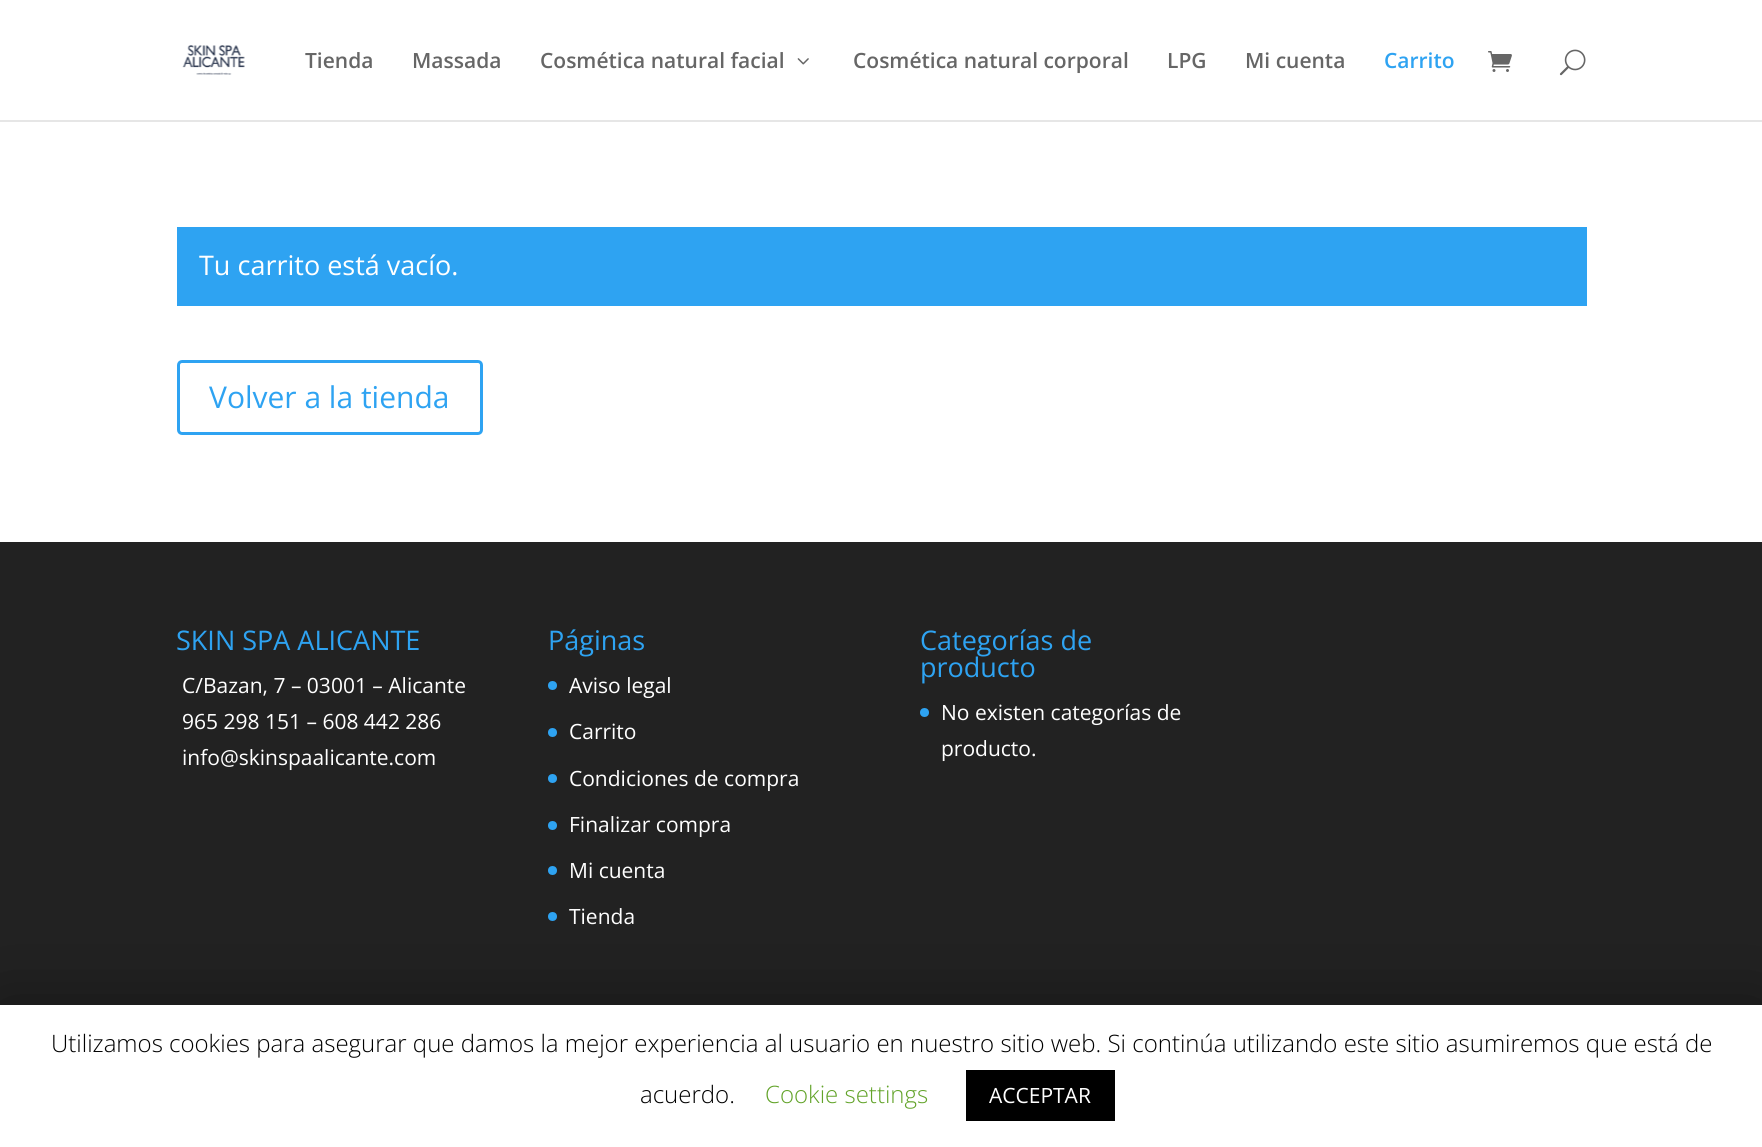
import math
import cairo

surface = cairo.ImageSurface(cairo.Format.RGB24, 1762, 1147)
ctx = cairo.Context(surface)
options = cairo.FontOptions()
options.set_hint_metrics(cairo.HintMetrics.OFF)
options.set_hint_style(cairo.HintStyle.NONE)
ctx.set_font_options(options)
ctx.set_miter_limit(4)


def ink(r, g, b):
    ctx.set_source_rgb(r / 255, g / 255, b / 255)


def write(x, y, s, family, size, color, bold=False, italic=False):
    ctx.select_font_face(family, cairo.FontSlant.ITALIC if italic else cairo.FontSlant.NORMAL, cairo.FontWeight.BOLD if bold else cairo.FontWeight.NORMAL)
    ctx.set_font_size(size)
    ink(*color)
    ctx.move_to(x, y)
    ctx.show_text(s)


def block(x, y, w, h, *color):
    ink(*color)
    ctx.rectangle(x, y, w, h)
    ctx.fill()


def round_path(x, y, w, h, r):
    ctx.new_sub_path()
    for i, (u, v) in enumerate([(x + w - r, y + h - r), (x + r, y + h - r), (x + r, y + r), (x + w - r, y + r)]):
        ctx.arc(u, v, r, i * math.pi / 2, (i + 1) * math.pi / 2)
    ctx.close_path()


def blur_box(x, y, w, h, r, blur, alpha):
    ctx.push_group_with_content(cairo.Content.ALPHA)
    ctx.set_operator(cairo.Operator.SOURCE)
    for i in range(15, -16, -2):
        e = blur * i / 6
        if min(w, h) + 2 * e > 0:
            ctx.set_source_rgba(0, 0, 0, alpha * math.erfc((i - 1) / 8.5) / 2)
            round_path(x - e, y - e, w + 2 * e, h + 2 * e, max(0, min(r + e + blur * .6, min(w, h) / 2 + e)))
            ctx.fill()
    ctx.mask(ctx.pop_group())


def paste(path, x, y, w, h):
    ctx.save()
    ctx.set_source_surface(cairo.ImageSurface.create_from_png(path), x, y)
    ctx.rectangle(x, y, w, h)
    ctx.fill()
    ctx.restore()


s1 = dict(family="Open Sans SemiBold", size=21, color=(102, 102, 102))
s2 = dict(family="Open Sans SemiBold", size=21, color=(46, 163, 242))
s3 = dict(family="Open Sans", size=27, color=(255, 255, 255))
s4 = dict(family="Open Sans", size=30, color=(46, 163, 242))
s5 = dict(family="Open Sans", size=27, color=(46, 163, 242))
s6 = dict(family="Open Sans", size=21, color=(255, 255, 255))
s7 = dict(family="Open Sans Light", size=24, color=(0, 0, 0))
s8 = dict(family="Open Sans Light", size=24, color=(98, 163, 41))

ink(255, 255, 255)
ctx.paint()
ink(230, 230, 230)
ctx.new_path()
ctx.move_to(0, 120)
ctx.line_to(0, 122)
ctx.line_to(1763, 122)
ctx.line_to(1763, 2)
ctx.line_to(1762, 2)
ctx.line_to(1762, 120)
ctx.close_path()
ctx.fill()
paste("pic1.png", 182, 45, 63, 30)
write(305, 68, "Tienda", **s1)
write(412, 68, "Massada", **s1)
write(540, 68, "Cosmética natural facial", **s1)
paste("pic2.png", 797, 58, 12, 7)
write(853, 68, "Cosmética natural corporal", **s1)
write(1167, 68, "LPG", **s1)
write(1245, 68, "Mi cuenta", **s1)
write(1384, 68, "Carrito", **s2)
paste("pic3.png", 1488, 51, 24, 21)
paste("pic4.png", 1559, 49, 27, 27)
block(177, 227, 1410, 79, 46, 163, 242)
write(199, 275, "Tu carrito está vacío.", **s3)
round_path(178.5, 361.5, 303, 72, 3.5)
ink(46, 163, 242)
ctx.set_line_width(3)
ctx.stroke()
write(209, 408, "Volver a la tienda", **s4)
block(0, 542, 1762, 463, 34, 34, 34)
write(176, 650, "SKIN SPA ALICANTE", **s5)
write(182, 693, "C/Bazan, 7 – 03001 – Alicante", **s6)
write(182, 729, "965 298 151 – 608 442 286", **s6)
write(182, 765, "info@skinspaalicante.com", **s6)
write(548, 650, "Páginas", **s5)
ctx.new_path()
ctx.arc(552.5, 685.5, 4.5, 0, 2 * math.pi)
ctx.fill()
write(569, 693, "Aviso legal", **s6)
ink(46, 163, 242)
ctx.new_path()
ctx.arc(552.5, 732.5, 4.5, 0, 2 * math.pi)
ctx.fill()
write(569, 739, "Carrito", **s6)
ink(46, 163, 242)
ctx.new_path()
ctx.arc(552.5, 778.5, 4.5, 0, 2 * math.pi)
ctx.fill()
write(569, 786, "Condiciones de compra", **s6)
ink(46, 163, 242)
ctx.new_path()
ctx.arc(552.5, 825.5, 4.5, 0, 2 * math.pi)
ctx.fill()
write(569, 832, "Finalizar compra", **s6)
ink(46, 163, 242)
ctx.new_path()
ctx.arc(552.5, 870.5, 4.5, 0, 2 * math.pi)
ctx.fill()
write(569, 878, "Mi cuenta", **s6)
ink(46, 163, 242)
ctx.new_path()
ctx.arc(552.5, 916.5, 4.5, 0, 2 * math.pi)
ctx.fill()
write(569, 924, "Tienda", **s6)
write(920, 650, "Categorías de", **s5)
write(920, 677, "producto", **s5)
ctx.new_path()
ctx.arc(924.5, 712.5, 4.5, 0, 2 * math.pi)
ctx.fill()
write(941, 720, "No existen categorías de", **s6)
write(941, 756, "producto.", **s6)
ink(0, 0, 0)
blur_box(0, 1013, 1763, 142, 0, 37.5, 0.5)
block(0, 1005, 1762, 142, 255, 255, 255)
write(51, 1052, "Utilizamos cookies para asegurar que damos la mejor experiencia al usuario en nuestro sitio web. Si continúa utilizando este sitio asumiremos que está de", **s7)
write(640, 1103, "acuerdo.", **s7)
write(765, 1103, "Cookie settings", **s8)
block(966, 1070, 149, 51, 0, 0, 0)
write(989, 1103, "ACCEPTAR", **s6)
surface.write_to_png("screenshot.png")
